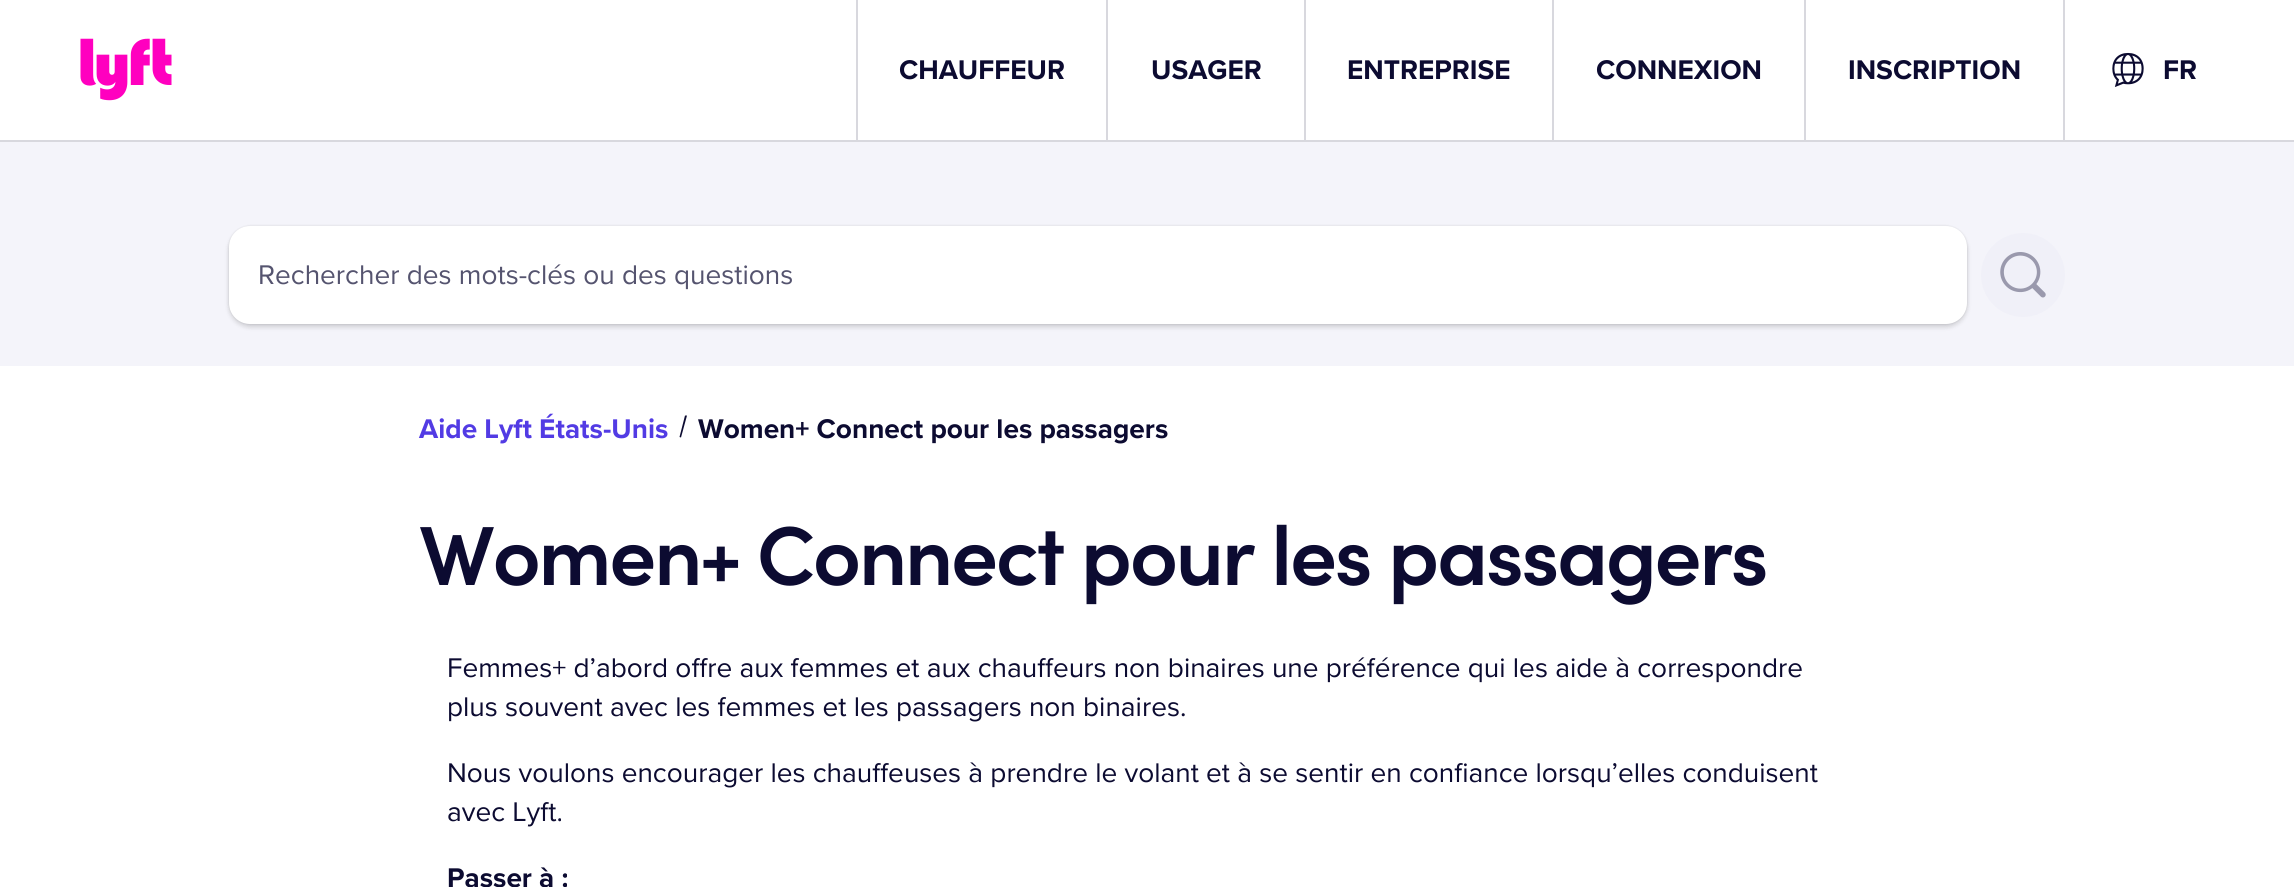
import math
import cairo

surface = cairo.ImageSurface(cairo.Format.RGB24, 2294, 887)
ctx = cairo.Context(surface)
options = cairo.FontOptions()
options.set_hint_metrics(cairo.HintMetrics.OFF)
options.set_hint_style(cairo.HintStyle.NONE)
ctx.set_font_options(options)
ctx.set_miter_limit(4)


def ink(r, g, b):
    ctx.set_source_rgb(r / 255, g / 255, b / 255)


def write(x, y, s, family, size, color, bold=False, italic=False):
    ctx.select_font_face(family, cairo.FontSlant.ITALIC if italic else cairo.FontSlant.NORMAL, cairo.FontWeight.BOLD if bold else cairo.FontWeight.NORMAL)
    ctx.set_font_size(size)
    ink(*color)
    ctx.move_to(x, y)
    ctx.show_text(s)


def block(x, y, w, h, *color):
    ink(*color)
    ctx.rectangle(x, y, w, h)
    ctx.fill()


def round_path(x, y, w, h, r):
    ctx.new_sub_path()
    for i, (u, v) in enumerate([(x + w - r, y + h - r), (x + r, y + h - r), (x + r, y + r), (x + w - r, y + r)]):
        ctx.arc(u, v, r, i * math.pi / 2, (i + 1) * math.pi / 2)
    ctx.close_path()


def blur_box(x, y, w, h, r, blur, alpha):
    ctx.push_group_with_content(cairo.Content.ALPHA)
    ctx.set_operator(cairo.Operator.SOURCE)
    for i in range(15, -16, -2):
        e = blur * i / 6
        if min(w, h) + 2 * e > 0:
            ctx.set_source_rgba(0, 0, 0, alpha * math.erfc((i - 1) / 8.5) / 2)
            round_path(x - e, y - e, w + 2 * e, h + 2 * e, max(0, min(r + e + blur * .6, min(w, h) / 2 + e)))
            ctx.fill()
    ctx.mask(ctx.pop_group())


def paste(path, x, y, w, h):
    ctx.save()
    ctx.set_source_surface(cairo.ImageSurface.create_from_png(path), x, y)
    ctx.rectangle(x, y, w, h)
    ctx.fill()
    ctx.restore()


s1 = dict(family="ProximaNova", size=28, color=(12, 11, 49), bold=True)
s2 = dict(family="ProximaNova", size=28, color=(85, 84, 111))
s3 = dict(family="ProximaNova", size=28, color=(82, 59, 228), bold=True)
s4 = dict(family="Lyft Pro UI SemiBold", size=84, color=(12, 11, 49))
s5 = dict(family="ProximaNova", size=28, color=(12, 11, 49))

ink(255, 255, 255)
ctx.paint()
block(0, 140, 2294, 2, 216, 216, 222)
paste("pic1.png", 80, 38, 92, 63)
block(856, 0, 2, 140, 216, 216, 222)
write(899, 79, "CHAUFFEUR", **s1)
block(1106, 0, 2, 140, 216, 216, 222)
write(1151, 79, "USAGER", **s1)
block(1304, 0, 2, 140, 216, 216, 222)
write(1347, 79, "ENTREPRISE", **s1)
block(1552, 0, 2, 140, 216, 216, 222)
write(1596, 79, "CONNEXION", **s1)
block(1804, 0, 2, 140, 216, 216, 222)
write(1848, 79, "INSCRIPTION", **s1)
block(2063, 0, 2, 140, 216, 216, 222)
paste("pic2.png", 2112, 52, 32, 35)
write(2163, 79, "FR", **s1)
block(0, 142, 2294, 224, 244, 244, 250)
ink(0, 0, 0)
blur_box(229, 229, 1738, 98, 21, 2.5, 0.16)
blur_box(229, 226, 1738, 98, 21, 1, 0.12)
ink(255, 255, 255)
round_path(229, 226, 1738, 98, 21)
ctx.fill()
write(258, 284, "Rechercher des mots-clés ou des questions", **s2)
ink(240, 240, 248)
ctx.new_path()
ctx.arc(2023, 275, 42, 0, 2 * math.pi)
ctx.fill()
paste("pic3.png", 2000, 252, 46, 46)
write(419, 438, "Aide Lyft États-Unis", **s3)
ink(12, 11, 49)
ctx.new_path()
ctx.move_to(685, 415.5)
ctx.line_to(687, 415.5)
ctx.line_to(681, 437.5)
ctx.line_to(679.5, 437)
ctx.close_path()
ctx.fill()
write(698, 438, "Women+ Connect pour les passagers", **s1)
write(419, 585, "Women+ Connect pour les passagers", **s4)
write(447, 677, "Femmes+ d’abord offre aux femmes et aux chauffeurs non binaires une préférence qui les aide à correspondre", **s5)
write(447, 716, "plus souvent avec les femmes et les passagers non binaires.", **s5)
write(447, 782, "Nous voulons encourager les chauffeuses à prendre le volant et à se sentir en confiance lorsqu’elles conduisent", **s5)
write(447, 821, "avec Lyft.", **s5)
write(447, 887, "Passer à :", **s1)
surface.write_to_png("screenshot.png")
